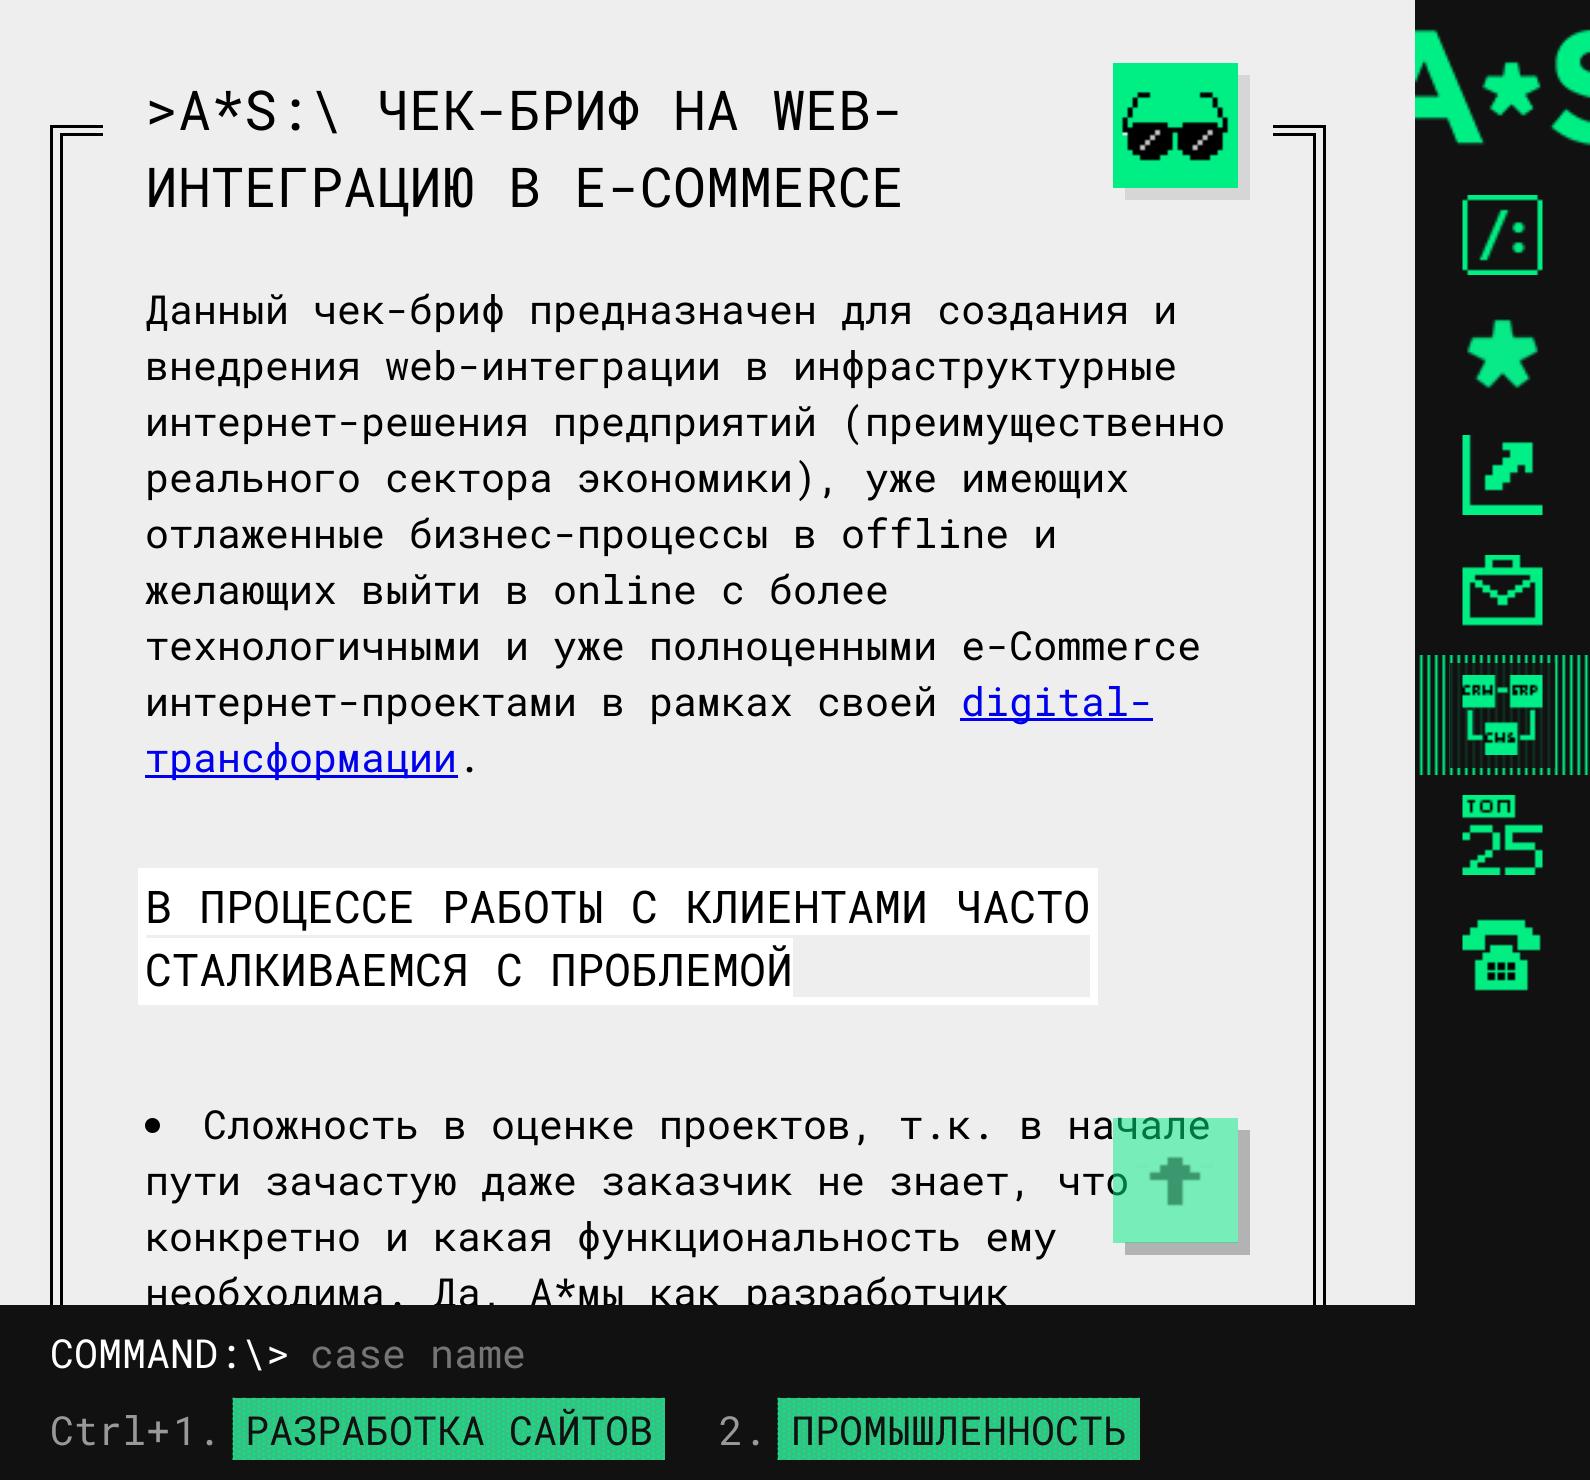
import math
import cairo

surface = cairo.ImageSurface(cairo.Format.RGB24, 1590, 1480)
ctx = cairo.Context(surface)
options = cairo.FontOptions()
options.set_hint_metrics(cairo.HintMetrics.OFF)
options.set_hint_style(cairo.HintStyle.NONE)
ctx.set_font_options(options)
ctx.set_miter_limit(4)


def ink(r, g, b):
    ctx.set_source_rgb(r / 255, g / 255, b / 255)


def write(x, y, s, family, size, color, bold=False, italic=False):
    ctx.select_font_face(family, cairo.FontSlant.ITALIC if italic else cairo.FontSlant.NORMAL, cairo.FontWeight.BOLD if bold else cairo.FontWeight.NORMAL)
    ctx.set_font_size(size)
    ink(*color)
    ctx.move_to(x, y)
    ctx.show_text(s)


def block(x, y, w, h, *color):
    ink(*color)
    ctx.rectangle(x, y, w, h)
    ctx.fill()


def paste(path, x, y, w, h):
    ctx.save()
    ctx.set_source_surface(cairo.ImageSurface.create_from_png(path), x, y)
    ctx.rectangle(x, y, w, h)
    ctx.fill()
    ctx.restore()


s1 = dict(family="Roboto Mono", size=55, color=(0, 0, 0))
s2 = dict(family="Roboto Mono", size=40, color=(0, 0, 0))
s3 = dict(family="Roboto Mono", size=40, color=(0, 0, 238))
s4 = dict(family="Roboto Mono", size=45, color=(0, 0, 0))
s5 = dict(family="Roboto Mono", size=40, color=(255, 255, 255))
s6 = dict(family="Roboto Mono", size=40, color=(117, 117, 117))
s7 = dict(family="Roboto Mono", size=40, color=(153, 153, 153))
s8 = dict(family="Roboto Mono", size=40, color=(17, 17, 17))

ink(17, 17, 17)
ctx.paint()
block(0, 0, 1415, 1305, 238, 238, 238)
block(1323, 125, 3, 1180, 0, 0, 0)
block(50, 125, 3, 1180, 0, 0, 0)
block(53, 125, 50, 3, 0, 0, 0)
block(1313, 133, 3, 1172, 0, 0, 0)
block(60, 133, 3, 1172, 0, 0, 0)
block(63, 133, 40, 3, 0, 0, 0)
write(145, 130, ">A*S:\\ ЧЕК-БРИФ НА WEB-", **s1)
write(145, 207, "ИНТЕГРАЦИЮ В E-COMMERCE", **s1)
ink(214, 214, 214)
ctx.new_path()
ctx.move_to(1125, 188)
ctx.line_to(1125, 200)
ctx.line_to(1250, 200)
ctx.line_to(1250, 75)
ctx.line_to(1238, 75)
ctx.line_to(1238, 188)
ctx.close_path()
ctx.fill()
block(1113, 63, 125, 125, 0, 239, 133)
paste("pic1.png", 1121, 91, 108, 70)
write(145, 324, "Данный чек-бриф предназначен для создания и", **s2)
write(145, 380, "внедрения web-интеграции в инфраструктурные", **s2)
write(145, 436, "интернет-решения предприятий (преимущественно", **s2)
write(145, 492, "реального сектора экономики), уже имеющих", **s2)
write(145, 548, "отлаженные бизнес-процессы в offline и", **s2)
write(145, 604, "желающих выйти в online с более", **s2)
write(145, 660, "технологичными и уже полноценными e-Commerce", **s2)
write(145, 716, "интернет-проектами в рамках своей", **s2)
block(960, 718, 193, 3, 0, 0, 238)
write(961, 716, "digital-", **s3)
block(145, 775, 313, 3, 0, 0, 238)
write(145, 772, "трансформации", **s3)
write(457, 772, ".", **s2)
block(146, 876, 944, 59, 255, 255, 255)
write(145, 923, "В ПРОЦЕССЕ РАБОТЫ С КЛИЕНТАМИ ЧАСТО", **s4)
block(146, 938, 647, 59, 255, 255, 255)
ctx.rectangle(142, 872, 952, 129)
ctx.set_line_width(8)
ctx.stroke()
write(145, 986, "СТАЛКИВАЕМСЯ С ПРОБЛЕМОЙ", **s4)
ctx.new_path()
ctx.arc(152.5, 1125.5, 7.5, 0, 2 * math.pi)
ctx.fill()
write(203, 1139, "Сложность в оценке проектов, т.к. в начале", **s2)
write(145, 1195, "пути зачастую даже заказчик не знает, что", **s2)
write(145, 1251, "конкретно и какая функциональность ему", **s2)
ctx.save()
ctx.rectangle(0, 0, 1415, 1305)
ctx.clip()
write(145, 1307, "необходима. Да, A*мы как разработчик", **s2)
ctx.restore()
block(1273, 133, 40, 3, 0, 0, 0)
block(1273, 125, 50, 3, 0, 0, 0)
ink(179, 179, 179)
ctx.new_path()
ctx.move_to(1125, 1242)
ctx.line_to(1125, 1255)
ctx.line_to(1250, 1255)
ctx.line_to(1250, 1130)
ctx.line_to(1238, 1130)
ctx.line_to(1238, 1242)
ctx.close_path()
ctx.fill()
ctx.set_source_rgba(0, 0.937, 0.522, 0.5)
ctx.rectangle(1113, 1118, 125, 125)
ctx.fill()
paste("pic2.png", 1136, 1156, 78, 51)
paste("pic3.png", 1415, 29, 175, 117)
paste("pic4.png", 1462, 195, 81, 80)
paste("pic5.png", 1466, 319, 73, 70)
paste("pic6.png", 1462, 435, 81, 80)
paste("pic7.png", 1462, 555, 81, 71)
paste("pic8.png", 1419, 655, 170, 120)
ctx.set_source_rgba(0.067, 0.067, 0.067, 0.85)
ctx.rectangle(1450, 663, 105, 105)
ctx.fill()
paste("pic9.png", 1462, 675, 81, 80)
paste("pic10.png", 1462, 795, 81, 80)
paste("pic11.png", 1462, 919, 79, 72)
write(50, 1368, "COMMAND:\\>", **s5)
write(310, 1368, "case name", **s6)
write(50, 1445, "Ctrl+", **s7)
write(173, 1445, "1.", **s7)
block(233, 1398, 432, 62, 60, 187, 131)
paste("pic12.png", 232, 1397, 433, 63)
write(245, 1445, "РАЗРАБОТКА САЙТОВ", **s8)
write(719, 1445, "2.", **s7)
block(778, 1398, 362, 62, 60, 187, 131)
paste("pic13.png", 777, 1397, 363, 63)
write(791, 1445, "ПРОМЫШЛЕННОСТЬ", **s8)
surface.write_to_png("screenshot.png")
